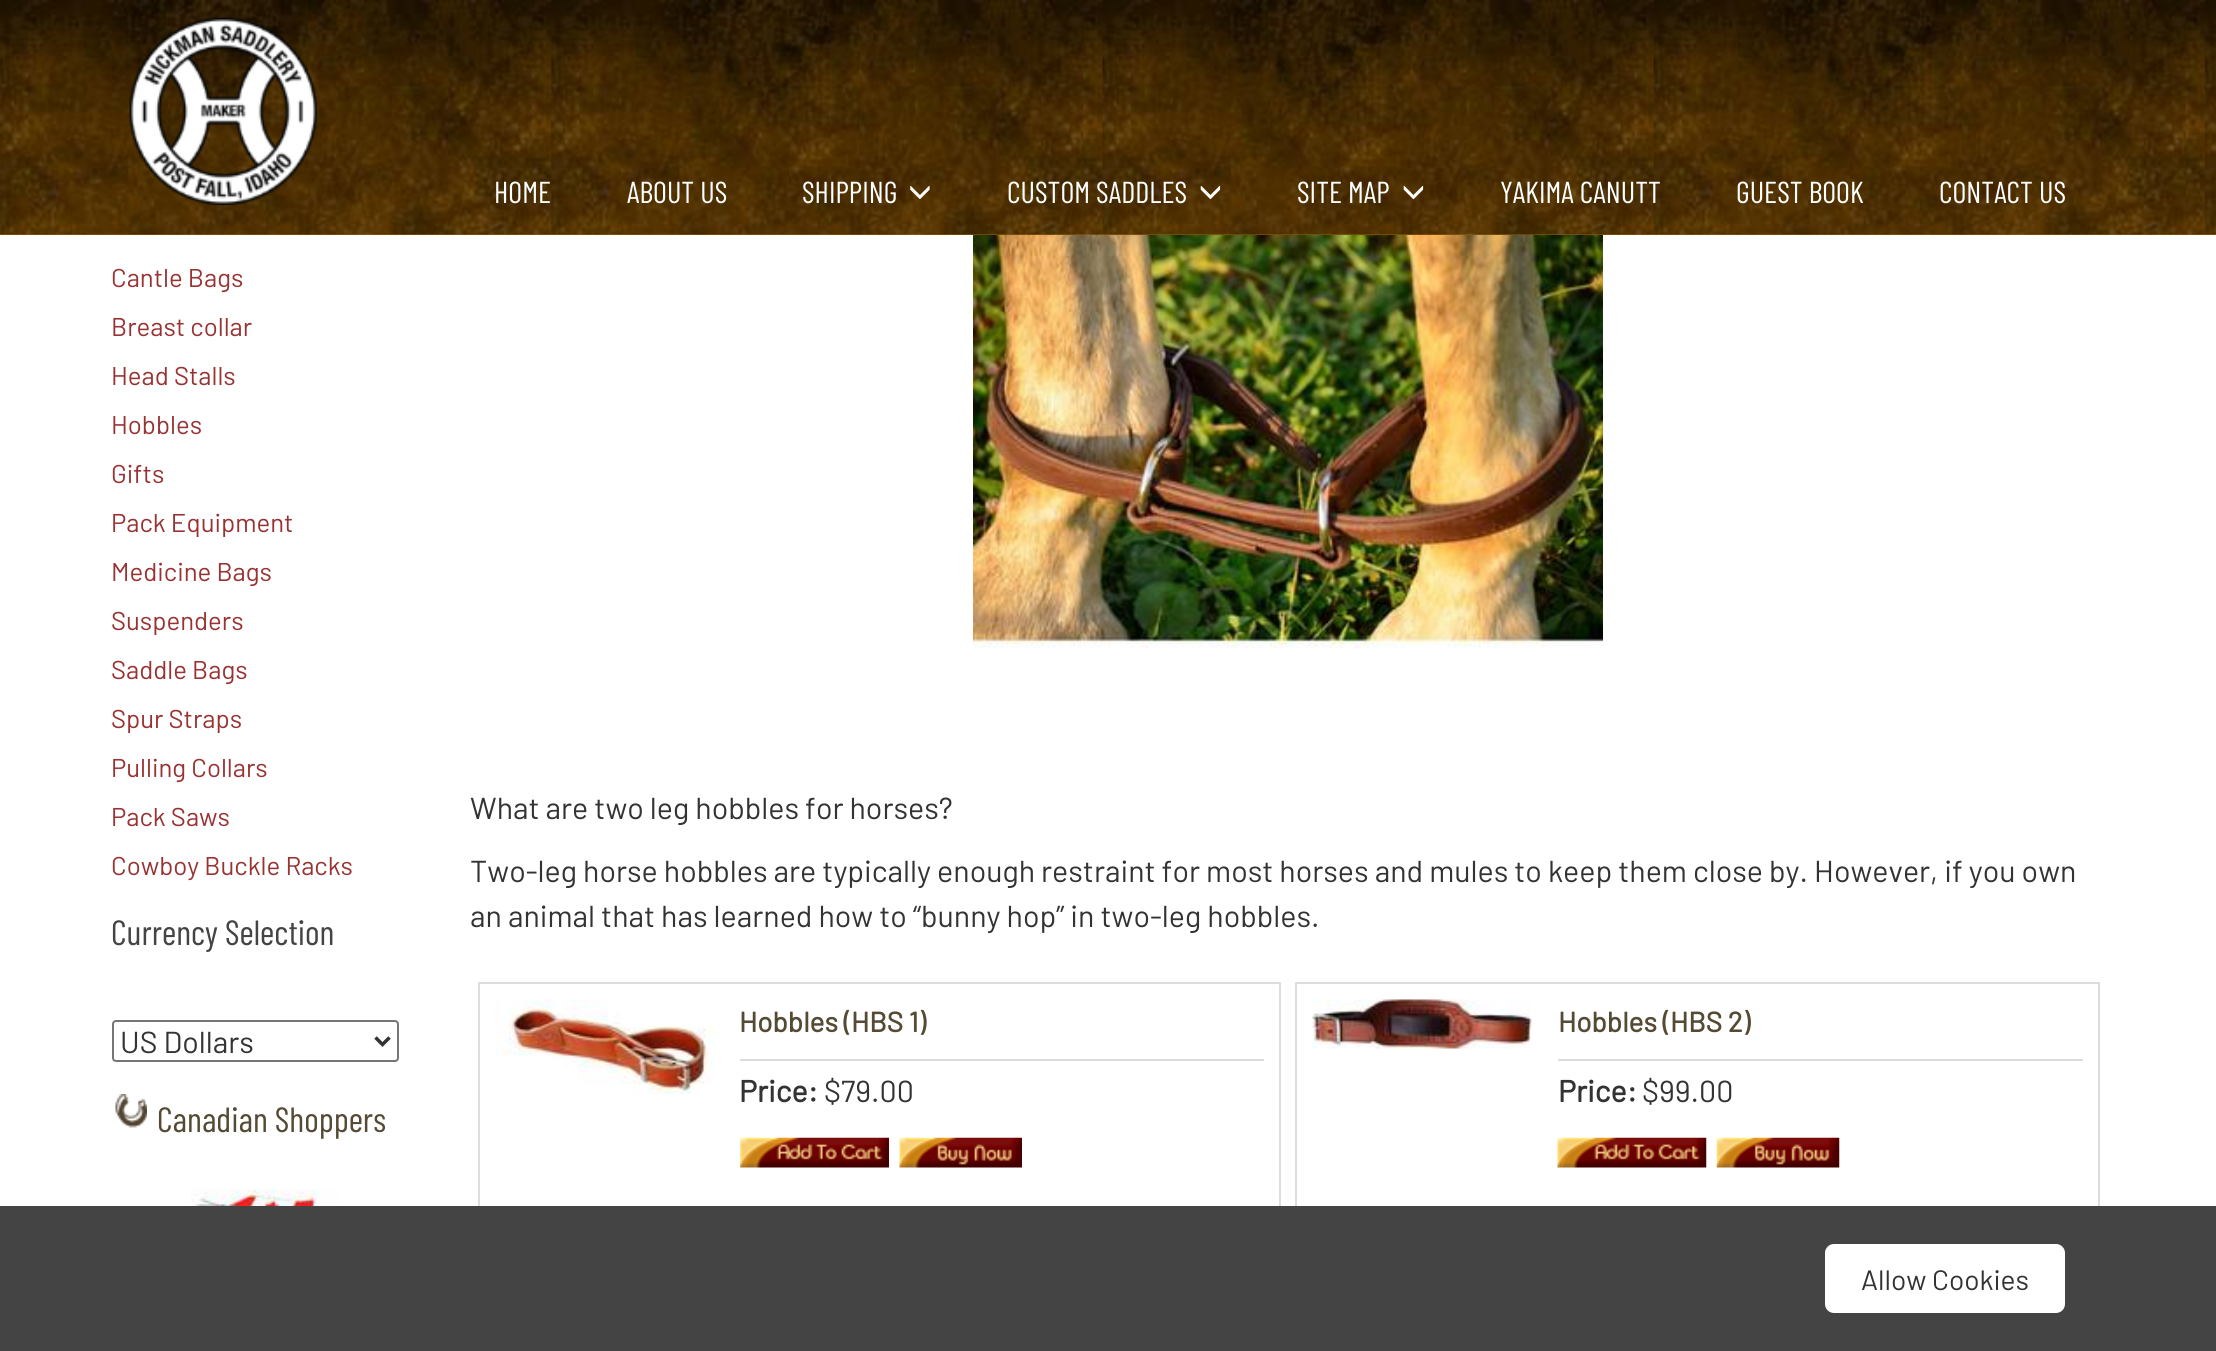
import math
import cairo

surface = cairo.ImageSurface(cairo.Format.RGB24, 2216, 1351)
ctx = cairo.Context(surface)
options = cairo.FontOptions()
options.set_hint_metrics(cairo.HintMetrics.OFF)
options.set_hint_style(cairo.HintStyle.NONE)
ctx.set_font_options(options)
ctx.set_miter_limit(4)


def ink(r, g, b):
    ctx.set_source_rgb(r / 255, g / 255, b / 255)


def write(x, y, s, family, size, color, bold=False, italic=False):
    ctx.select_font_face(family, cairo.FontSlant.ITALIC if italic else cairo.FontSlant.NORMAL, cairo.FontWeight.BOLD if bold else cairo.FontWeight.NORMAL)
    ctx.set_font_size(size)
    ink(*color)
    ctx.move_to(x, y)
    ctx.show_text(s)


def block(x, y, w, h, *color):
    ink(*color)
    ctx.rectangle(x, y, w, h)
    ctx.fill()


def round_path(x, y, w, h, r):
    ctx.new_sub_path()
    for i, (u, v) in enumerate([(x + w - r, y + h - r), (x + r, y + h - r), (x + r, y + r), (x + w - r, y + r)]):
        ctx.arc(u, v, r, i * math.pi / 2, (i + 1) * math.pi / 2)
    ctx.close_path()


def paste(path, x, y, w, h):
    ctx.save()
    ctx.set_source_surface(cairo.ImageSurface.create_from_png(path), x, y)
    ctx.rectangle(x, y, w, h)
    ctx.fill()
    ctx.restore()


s1 = dict(family="Barlow Condensed", size=30.33, color=(255, 255, 255))
s2 = dict(family="Barlow", size=25.75, color=(153, 51, 51))
s3 = dict(family="Barlow Condensed", size=35, color=(68, 68, 68))
s4 = dict(family="Barlow", size=30.33, color=(51, 51, 51))
s5 = dict(family="Barlow Condensed", size=35, color=(85, 74, 52))
s6 = dict(family="Barlow", size=28, color=(85, 74, 52), bold=True)
s7 = dict(family="Barlow", size=30.33, color=(51, 51, 51), bold=True)
s8 = dict(family="Barlow", size=28, color=(51, 51, 51))

ink(255, 255, 255)
ctx.paint()
block(0, 234, 2216, 1, 173, 117, 13)
paste("pic1.png", 0, 0, 2216, 235)
paste("pic2.png", 129, 17, 188, 188)
write(494, 203, "HOME", **s1)
write(627, 203, "ABOUT US", **s1)
write(802, 203, "SHIPPING", **s1)
paste("pic3.png", 910, 185, 20, 15)
write(1007, 203, "CUSTOM SADDLES", **s1)
paste("pic4.png", 1200, 185, 21, 15)
write(1297, 203, "SITE MAP", **s1)
paste("pic5.png", 1403, 185, 21, 15)
write(1500, 203, "YAKIMA CANUTT", **s1)
write(1736, 203, "GUEST BOOK", **s1)
write(1939, 203, "CONTACT US", **s1)
write(111, 287, "Cantle Bags", **s2)
write(111, 336, "Breast collar", **s2)
write(111, 385, "Head Stalls", **s2)
write(111, 434, "Hobbles", **s2)
write(111, 483, "Gifts", **s2)
write(111, 532, "Pack Equipment", **s2)
write(111, 581, "Medicine Bags", **s2)
write(111, 630, "Suspenders", **s2)
write(111, 679, "Saddle Bags", **s2)
write(111, 728, "Spur Straps", **s2)
write(111, 777, "Pulling Collars", **s2)
write(111, 826, "Pack Saws", **s2)
write(111, 875, "Cowboy Buckle Racks", **s2)
write(111, 945, "Currency Selection", **s3)
round_path(113, 1021, 285, 40, 3)
ink(118, 118, 118)
ctx.stroke()
ctx.new_path()
ctx.move_to(375.5, 1037.5)
ctx.line_to(382.5, 1044.5)
ctx.line_to(389.5, 1037.5)
ink(51, 51, 51)
ctx.set_line_width(3.5)
ctx.stroke()
write(120, 1053, "US Dollars", **s4)
paste("pic6.png", 115, 1094, 32, 34)
write(157, 1132, "Canadian Shoppers", **s5)
paste("pic7.png", 191, 1188, 147, 18)
paste("pic8.png", 973, 235, 630, 414)
write(470, 819, "What are two leg hobbles for horses?", **s4)
write(470, 882, "Two-leg horse hobbles are typically enough restraint for most horses and mules to keep them close by. However, if you own", **s4)
write(470, 927, "an animal that has learned how to “bunny hop” in two-leg hobbles.", **s4)
ctx.rectangle(479, 983, 801, 285)
ink(221, 221, 221)
ctx.set_line_width(2)
ctx.stroke()
paste("pic9.png", 495, 999, 219, 95)
block(740, 1059, 524, 2, 221, 221, 221)
write(739, 1032, "Hobbles (HBS 1)", **s6)
write(739, 1102, "Price:", **s7)
write(824, 1102, "$79.00", **s4)
paste("pic10.png", 740, 1137, 149, 31)
paste("pic11.png", 899, 1137, 123, 31)
ctx.rectangle(1296, 983, 803, 285)
ink(221, 221, 221)
ctx.stroke()
paste("pic12.png", 1312, 999, 220, 50)
block(1558, 1059, 525, 2, 221, 221, 221)
write(1558, 1032, "Hobbles (HBS 2)", **s6)
write(1558, 1102, "Price:", **s7)
write(1642, 1102, "$99.00", **s4)
paste("pic13.png", 1557, 1137, 150, 31)
paste("pic14.png", 1716, 1137, 124, 31)
block(0, 1206, 2216, 145, 68, 68, 68)
ink(255, 255, 255)
round_path(1825, 1244, 240, 69, 9)
ctx.fill()
write(1861, 1290, "Allow Cookies", **s8)
surface.write_to_png("screenshot.png")
